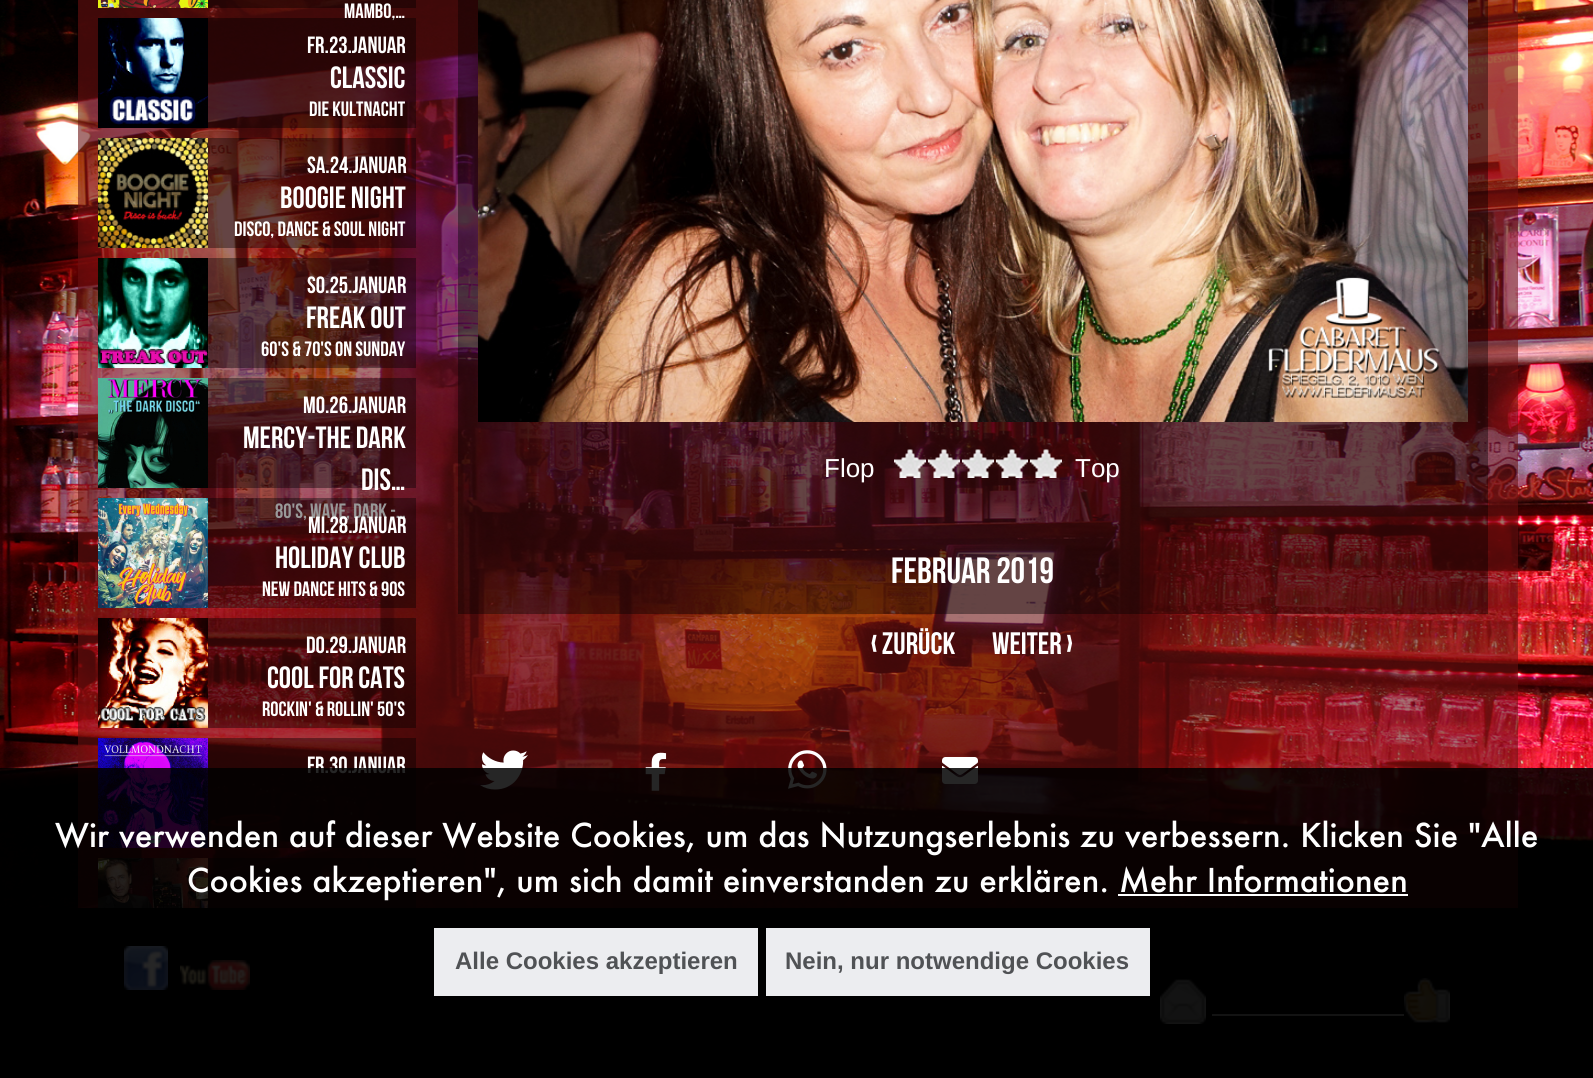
import math
import cairo

surface = cairo.ImageSurface(cairo.Format.RGB24, 1593, 1078)
ctx = cairo.Context(surface)
options = cairo.FontOptions()
options.set_hint_metrics(cairo.HintMetrics.OFF)
options.set_hint_style(cairo.HintStyle.NONE)
ctx.set_font_options(options)
ctx.set_miter_limit(4)


def ink(r, g, b):
    ctx.set_source_rgb(r / 255, g / 255, b / 255)


def write(x, y, s, family, size, color, bold=False, italic=False):
    ctx.select_font_face(family, cairo.FontSlant.ITALIC if italic else cairo.FontSlant.NORMAL, cairo.FontWeight.BOLD if bold else cairo.FontWeight.NORMAL)
    ctx.set_font_size(size)
    ink(*color)
    ctx.move_to(x, y)
    ctx.show_text(s)


def block(x, y, w, h, *color):
    ink(*color)
    ctx.rectangle(x, y, w, h)
    ctx.fill()


def paste(path, x, y, w, h):
    ctx.save()
    ctx.set_source_surface(cairo.ImageSurface.create_from_png(path), x, y)
    ctx.rectangle(x, y, w, h)
    ctx.fill()
    ctx.restore()


s1 = dict(family="Bebas Neue", size=20.75, color=(255, 255, 255))
s2 = dict(family="Bebas Neue", size=23.5, color=(255, 255, 255))
s3 = dict(family="Bebas Neue", size=30.75, color=(255, 255, 255))
s4 = dict(family="Liberation Sans", size=26, color=(255, 255, 255))
s5 = dict(family="Bebas Neue", size=36.5, color=(255, 255, 255))
s6 = dict(family="Bebas Neue", size=31, color=(255, 255, 255))
s7 = dict(family="Futura Medium", size=32, color=(255, 255, 255))
s8 = dict(family="Liberation Sans", size=24, color=(80, 82, 85), bold=True)

ink(255, 255, 255)
ctx.paint()
paste("pic1.png", 0, 0, 1593, 908)
ctx.set_source_rgba(0, 0, 0, 0.4)
ctx.rectangle(206, 0, 210, 8)
ctx.fill()
paste("pic2.png", 98, 0, 110, 8)
write(344, 18, "Mambo,…", **s1)
paste("pic3.png", 98, 18, 110, 110)
ctx.set_source_rgba(0, 0, 0, 0.4)
ctx.rectangle(208, 18, 208, 110)
ctx.fill()
write(307, 53, "Fr.23.Januar", **s2)
write(330, 88, "CLASSIC", **s3)
write(309, 116, "DIE KULTNACHT", **s1)
paste("pic4.png", 98, 138, 110, 110)
ctx.set_source_rgba(0, 0, 0, 0.4)
ctx.rectangle(208, 138, 208, 110)
ctx.fill()
write(307, 173, "Sa.24.Januar", **s2)
write(280, 208, "BOOGIE NIGHT", **s3)
write(234, 236, "DISCO, DANCE & SOUL NIGHT", **s1)
paste("pic5.png", 98, 258, 110, 110)
ctx.set_source_rgba(0, 0, 0, 0.4)
ctx.rectangle(208, 258, 208, 110)
ctx.fill()
write(307, 293, "So.25.Januar", **s2)
write(306, 328, "FREAK OUT", **s3)
write(261, 356, "60's & 70's On Sunday", **s1)
paste("pic6.png", 98, 378, 110, 110)
ctx.set_source_rgba(0, 0, 0, 0.4)
ctx.rectangle(208, 378, 208, 110)
ctx.fill()
write(303, 413, "Mo.26.Januar", **s2)
write(243, 448, "MERCY-The Dark", **s3)
write(361, 490, "Dis…", **s3)
write(275, 518, "80's, Wave, Dark -…", **s1)
paste("pic7.png", 98, 498, 110, 110)
ctx.set_source_rgba(0, 0, 0, 0.4)
ctx.rectangle(208, 498, 208, 110)
ctx.fill()
write(308, 533, "Mi.28.Januar", **s2)
write(275, 568, "HOLIDAY CLUB", **s3)
write(262, 596, "New Dance Hits & 90s", **s1)
paste("pic8.png", 98, 618, 110, 110)
ctx.set_source_rgba(0, 0, 0, 0.4)
ctx.rectangle(208, 618, 208, 110)
ctx.fill()
write(306, 653, "Do.29.Januar", **s2)
write(267, 688, "COOL FOR CATS", **s3)
write(262, 716, "ROCKIN' & ROLLIN' 50'S", **s1)
paste("pic9.png", 98, 738, 110, 110)
ctx.set_source_rgba(0, 0, 0, 0.4)
ctx.rectangle(208, 738, 208, 110)
ctx.fill()
write(307, 773, "Fr.30.Januar", **s2)
paste("pic10.png", 98, 858, 110, 50)
ctx.set_source_rgba(0, 0, 0, 0.4)
ctx.rectangle(208, 858, 208, 50)
ctx.fill()
ctx.rectangle(458, 0, 1030, 614)
ctx.fill()
paste("pic11.png", 478, 0, 990, 422)
write(824, 477, "Flop", **s4)
paste("pic12.png", 894, 449, 32, 29)
paste("pic13.png", 894, 449, 32, 29)
paste("pic14.png", 928, 449, 32, 29)
paste("pic15.png", 928, 449, 32, 29)
paste("pic16.png", 962, 449, 32, 29)
paste("pic17.png", 962, 449, 32, 29)
paste("pic18.png", 996, 449, 32, 29)
paste("pic19.png", 996, 449, 32, 29)
paste("pic20.png", 1030, 449, 32, 29)
paste("pic21.png", 1030, 449, 32, 29)
write(1075, 477, "Top", **s4)
write(891, 583, "Februar 2019", **s5)
write(871, 654, "‹ zurück", **s6)
write(992, 654, "weiter ›", **s6)
paste("pic22.png", 480, 750, 48, 40)
paste("pic23.png", 645, 752, 22, 39)
paste("pic24.png", 788, 750, 39, 39)
paste("pic25.png", 942, 757, 36, 27)
block(0, 908, 1593, 170, 0, 0, 0)
paste("pic26.png", 124, 946, 44, 44)
paste("pic27.png", 180, 960, 70, 30)
paste("pic28.png", 1160, 979, 46, 45)
block(1212, 1014, 192, 2, 128, 128, 128)
paste("pic29.png", 1404, 978, 46, 45)
ctx.set_source_rgba(0, 0, 0, 0.85)
ctx.rectangle(0, 768, 1593, 256)
ctx.fill()
write(55, 847, "Wir verwenden auf dieser Website Cookies, um das Nutzungserlebnis zu verbessern. Klicken Sie \"Alle", **s7)
write(187, 892, "Cookies akzeptieren\", um sich damit einverstanden zu erklären. Mehr Informationen", **s7)
block(1118, 894, 290, 2, 255, 255, 255)
block(434, 928, 324, 68, 236, 237, 240)
write(455, 969, "Alle Cookies akzeptieren", **s8)
block(766, 928, 384, 68, 236, 237, 240)
write(785, 969, "Nein, nur notwendige Cookies", **s8)
surface.write_to_png("screenshot.png")
